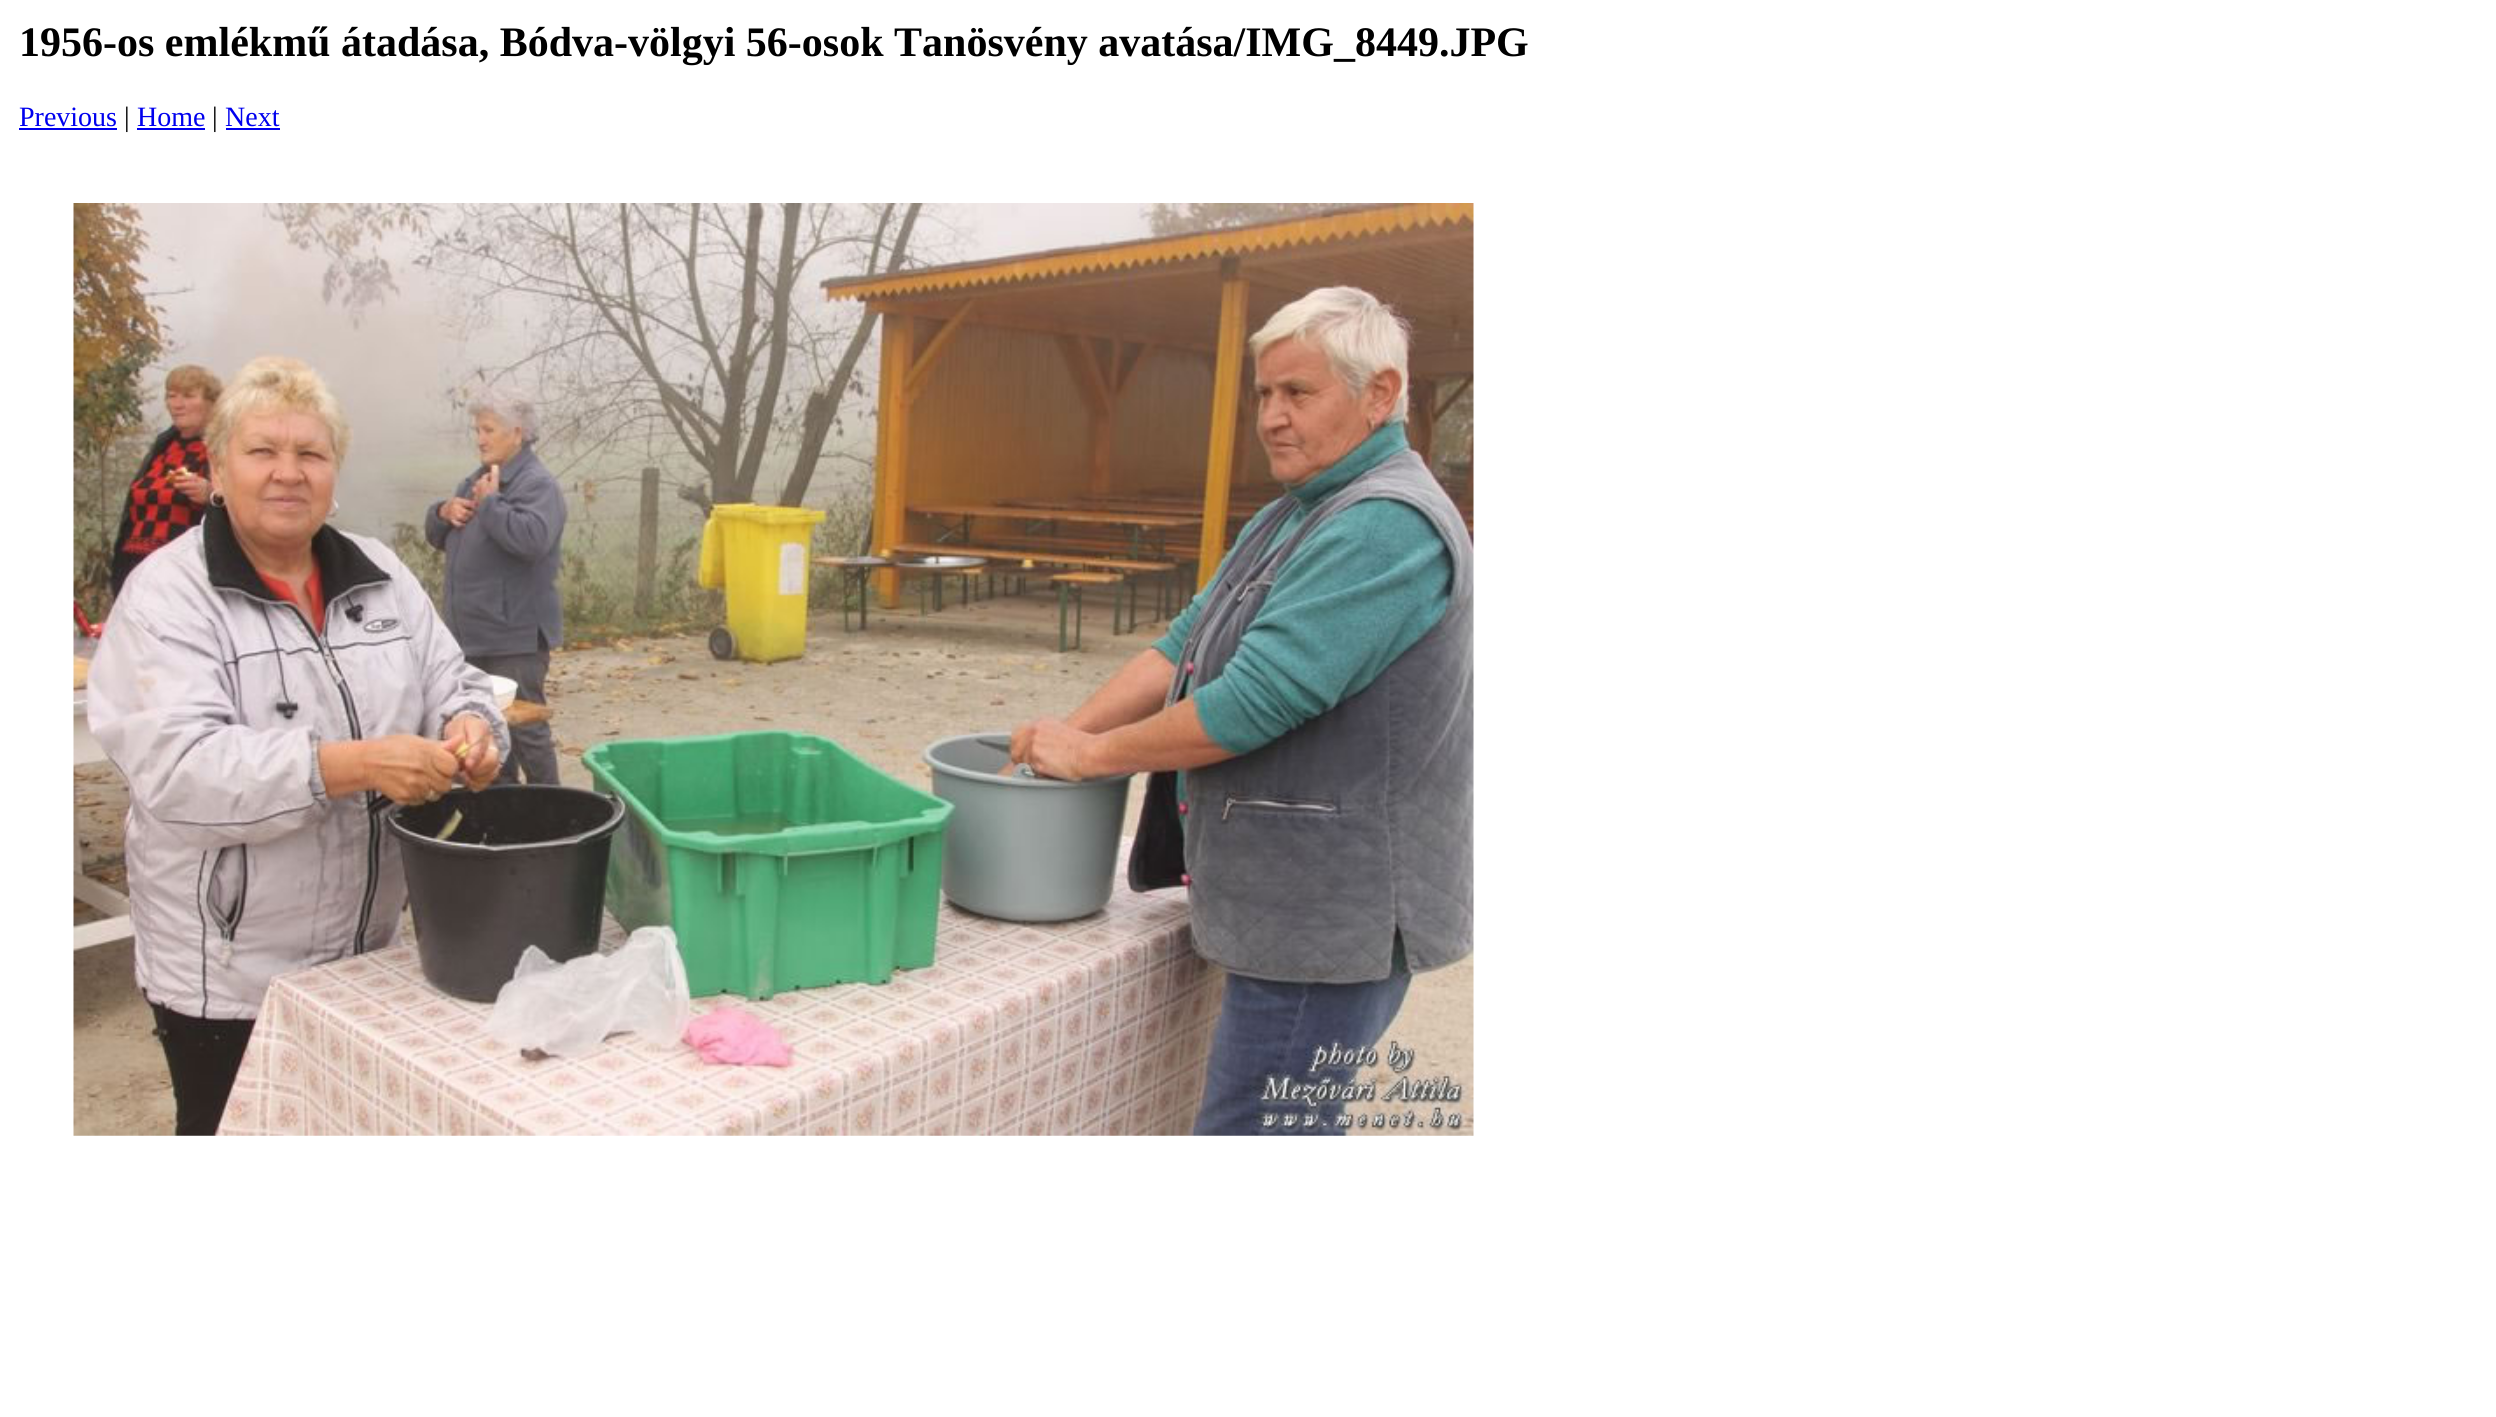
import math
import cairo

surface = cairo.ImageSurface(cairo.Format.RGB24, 2496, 1417)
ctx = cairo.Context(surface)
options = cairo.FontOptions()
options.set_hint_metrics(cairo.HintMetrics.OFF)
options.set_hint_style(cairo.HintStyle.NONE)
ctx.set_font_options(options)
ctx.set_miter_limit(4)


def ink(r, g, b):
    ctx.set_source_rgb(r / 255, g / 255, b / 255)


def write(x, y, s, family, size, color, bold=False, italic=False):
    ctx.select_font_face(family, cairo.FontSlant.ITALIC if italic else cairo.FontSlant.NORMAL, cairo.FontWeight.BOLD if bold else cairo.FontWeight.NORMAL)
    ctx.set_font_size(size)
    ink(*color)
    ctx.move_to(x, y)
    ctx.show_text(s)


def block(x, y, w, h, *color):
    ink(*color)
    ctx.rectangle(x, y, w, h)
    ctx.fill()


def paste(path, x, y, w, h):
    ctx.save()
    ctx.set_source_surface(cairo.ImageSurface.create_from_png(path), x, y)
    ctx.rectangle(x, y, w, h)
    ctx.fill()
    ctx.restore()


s1 = dict(family="Liberation Serif", size=42, color=(0, 0, 0), bold=True)
s2 = dict(family="Liberation Serif", size=28, color=(0, 0, 238))
s3 = dict(family="Liberation Serif", size=28, color=(0, 0, 0))

ink(255, 255, 255)
ctx.paint()
write(19, 56, "1956-os emlékmű átadása, Bódva-völgyi 56-osok Tanösvény avatása/IMG_8449.JPG", **s1)
write(19, 126, "Previous", **s2)
block(19, 128, 98, 2, 0, 0, 238)
write(124, 126, "|", **s3)
write(137, 126, "Home", **s2)
block(137, 128, 68, 2, 0, 0, 238)
write(212, 126, "|", **s3)
write(225, 126, "Next", **s2)
block(226, 128, 54, 2, 0, 0, 238)
paste("pic1.png", 73, 203, 1401, 933)
surface.write_to_png("screenshot.png")
